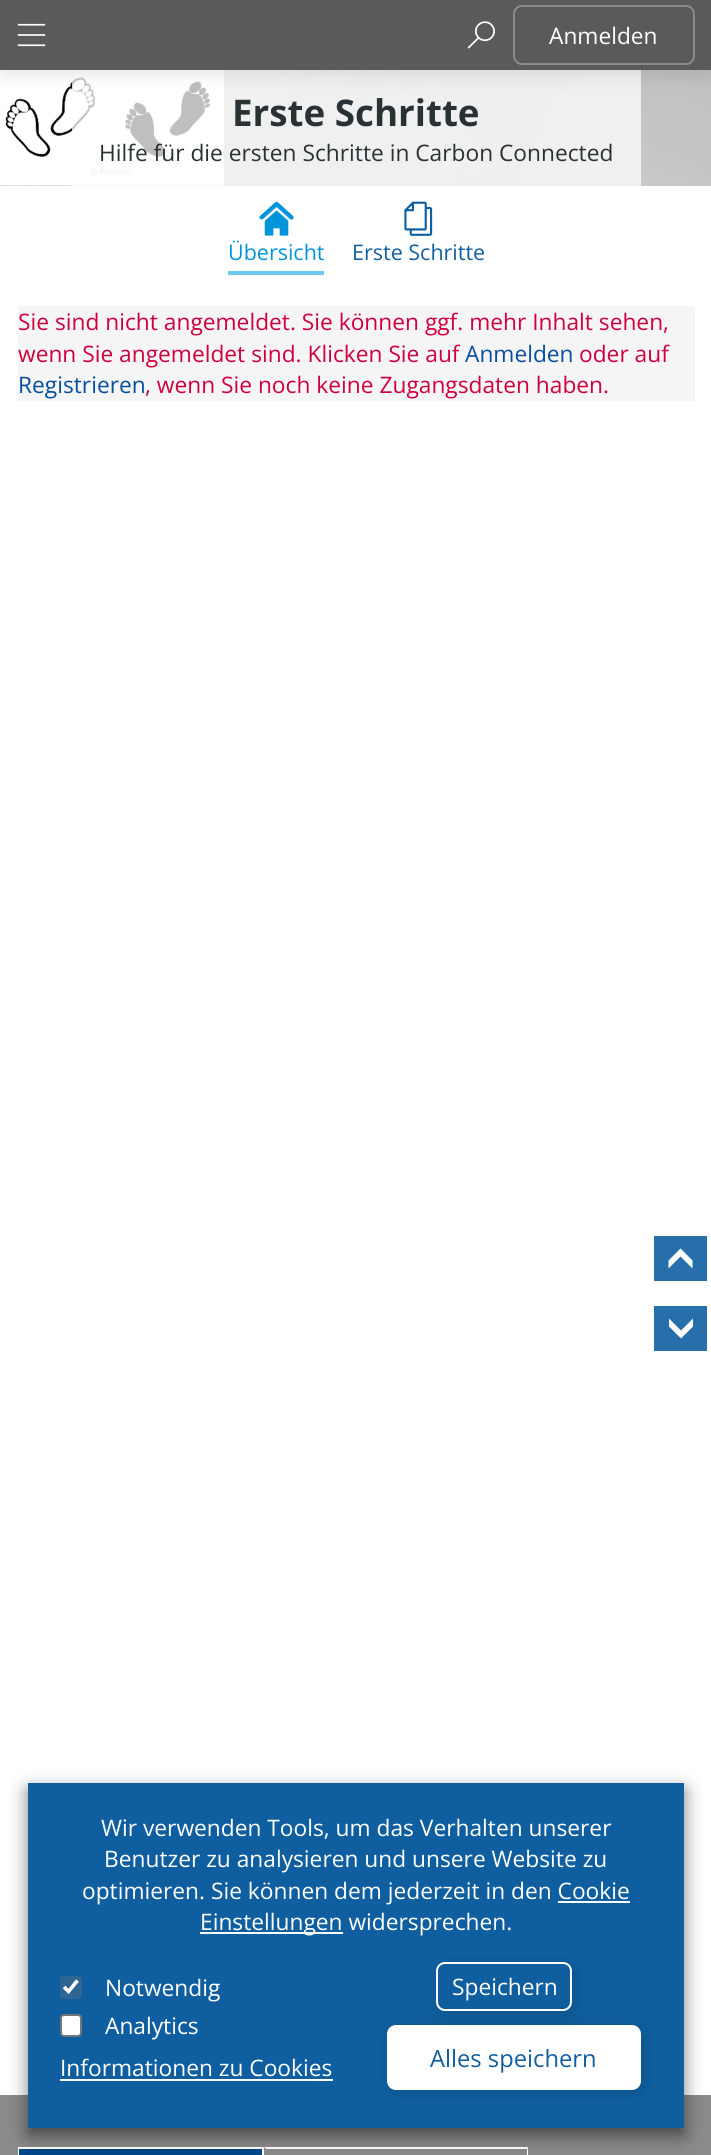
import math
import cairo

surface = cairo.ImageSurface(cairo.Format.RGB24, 711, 2155)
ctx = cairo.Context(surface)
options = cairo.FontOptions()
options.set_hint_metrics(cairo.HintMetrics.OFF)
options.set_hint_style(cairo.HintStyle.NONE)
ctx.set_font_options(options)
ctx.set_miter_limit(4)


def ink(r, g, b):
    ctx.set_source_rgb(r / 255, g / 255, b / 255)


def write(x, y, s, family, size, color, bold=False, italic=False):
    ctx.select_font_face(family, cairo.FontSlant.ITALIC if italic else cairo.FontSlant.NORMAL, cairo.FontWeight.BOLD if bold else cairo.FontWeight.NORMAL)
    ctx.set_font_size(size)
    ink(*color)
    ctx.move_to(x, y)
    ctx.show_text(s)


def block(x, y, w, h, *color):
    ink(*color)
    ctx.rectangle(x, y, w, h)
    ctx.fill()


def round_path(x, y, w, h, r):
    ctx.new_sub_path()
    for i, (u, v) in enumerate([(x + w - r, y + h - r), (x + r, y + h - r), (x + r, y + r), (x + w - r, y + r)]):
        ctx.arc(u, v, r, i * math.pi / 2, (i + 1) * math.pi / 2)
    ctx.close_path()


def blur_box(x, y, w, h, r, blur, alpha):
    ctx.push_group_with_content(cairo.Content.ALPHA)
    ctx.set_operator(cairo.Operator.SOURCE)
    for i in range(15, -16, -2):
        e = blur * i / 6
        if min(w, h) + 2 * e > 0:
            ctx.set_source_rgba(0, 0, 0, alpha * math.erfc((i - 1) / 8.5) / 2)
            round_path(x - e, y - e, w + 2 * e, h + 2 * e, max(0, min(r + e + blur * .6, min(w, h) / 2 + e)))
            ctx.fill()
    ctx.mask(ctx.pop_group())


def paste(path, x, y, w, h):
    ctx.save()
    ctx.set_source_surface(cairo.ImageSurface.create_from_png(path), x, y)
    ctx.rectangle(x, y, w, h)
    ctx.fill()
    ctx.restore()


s1 = dict(family="Open Sans", size=22.75, color=(255, 255, 255))
s2 = dict(family="Open Sans", size=36.75, color=(41, 49, 52), bold=True)
s3 = dict(family="Open Sans", size=22.75, color=(41, 49, 52))
s4 = dict(family="Open Sans", size=21.5, color=(0, 148, 218))
s5 = dict(family="Open Sans", size=21.5, color=(15, 95, 160))
s6 = dict(family="Open Sans", size=22.75, color=(208, 0, 63))
s7 = dict(family="Open Sans", size=22.75, color=(7, 79, 157))
s8 = dict(family="Open Sans", size=23.75, color=(15, 95, 160))

ink(255, 255, 255)
ctx.paint()
paste("pic6.png", 0, 70, 711, 116)
paste("pic3.png", 0, 70, 224, 116)
ctx.set_source_rgba(1, 1, 1, 0.75)
ctx.rectangle(72, 70, 569, 116)
ctx.fill()
ink(0, 0, 0)
blur_box(0, 5, 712, 70, 0, 9, 0.1)
block(0, 0, 711, 70, 90, 90, 90)
paste("pic1.png", 17, 23, 29, 24)
paste("pic2.png", 467, 21, 28, 28)
round_path(514, 6, 180, 58, 8)
ink(138, 138, 138)
ctx.stroke()
write(549, 44, "Anmelden", **s1)
write(232, 126, "Erste Schritte", **s2)
write(99, 161, "Hilfe für die ersten Schritte in Carbon Connected", **s3)
paste("pic4.png", 259, 201, 35, 35)
write(228, 260, "Übersicht", **s4)
block(228, 271, 96, 4, 108, 202, 236)
paste("pic5.png", 404, 201, 29, 35)
write(352, 260, "Erste Schritte", **s5)
block(18, 306, 677, 95, 245, 245, 245)
write(18, 330, "Sie sind nicht angemeldet. Sie können ggf. mehr Inhalt sehen,", **s6)
write(18, 362, "wenn Sie angemeldet sind. Klicken Sie auf", **s6)
write(465, 362, "Anmelden", **s7)
write(579, 362, "oder auf", **s6)
write(18, 393, "Registrieren", **s7)
write(145, 393, ", wenn Sie noch keine Zugangsdaten haben.", **s6)
block(654, 1236, 53, 45, 39, 111, 170)
ink(255, 255, 255)
ctx.new_path()
ctx.move_to(680.5, 1256.5)
ctx.line_to(692.5, 1268.5)
ctx.line_to(692.5, 1260.5)
ctx.line_to(680.5, 1248.5)
ctx.line_to(668.5, 1260.5)
ctx.line_to(668.5, 1268.5)
ctx.close_path()
ctx.fill()
block(654, 1306, 53, 45, 39, 111, 170)
ink(255, 255, 255)
ctx.new_path()
ctx.move_to(681, 1330.5)
ctx.line_to(669, 1318.5)
ctx.line_to(669, 1326.5)
ctx.line_to(681, 1338.5)
ctx.line_to(693, 1326.5)
ctx.line_to(693, 1318.5)
ctx.close_path()
ctx.fill()
block(0, 2095, 711, 60, 138, 138, 138)
block(18, 2149, 246, 6, 0, 70, 137)
block(18, 2147, 246, 2, 255, 255, 255)
ctx.new_path()
ctx.move_to(264, 2147)
ctx.line_to(264, 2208)
ctx.line_to(262, 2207)
ctx.line_to(262, 2149)
ctx.close_path()
ctx.fill()
ctx.new_path()
ctx.move_to(18, 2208)
ctx.line_to(18, 2147)
ctx.line_to(19, 2149)
ctx.line_to(19, 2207)
ctx.close_path()
ctx.fill()
ctx.new_path()
ctx.move_to(264, 2147)
ctx.line_to(528, 2147)
ctx.line_to(527, 2149)
ctx.line_to(266, 2149)
ctx.close_path()
ctx.fill()
ctx.new_path()
ctx.move_to(528, 2147)
ctx.line_to(528, 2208)
ctx.line_to(527, 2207)
ctx.line_to(527, 2149)
ctx.close_path()
ctx.fill()
ink(0, 0, 0)
blur_box(28, 1790, 656, 345, 0, 9, 0.5)
block(28, 1783, 656, 345, 15, 95, 160)
write(101, 1836, "Wir verwenden Tools, um das Verhalten unserer", **s1)
write(104, 1867, "Benutzer zu analysieren und unsere Website zu", **s1)
write(82, 1899, "optimieren. Sie können dem jederzeit in den Cookie", **s1)
block(200, 1932, 143, 2, 255, 255, 255)
write(200, 1930, "Einstellungen widersprechen.", **s1)
block(558, 1901, 72, 2, 255, 255, 255)
ink(46, 102, 147)
round_path(60, 1976, 22, 23, 4)
ctx.fill()
ctx.new_path()
ctx.move_to(64, 1987)
ctx.line_to(68.5, 1991.5)
ctx.line_to(77.5, 1980.5)
ink(255, 255, 255)
ctx.set_line_width(3.6)
ctx.stroke()
write(105, 1996, "Notwendig", **s1)
round_path(61, 2015, 20, 21, 3)
ctx.fill_preserve()
ink(118, 118, 118)
ctx.set_line_width(2)
ctx.stroke()
write(105, 2034, "Analytics", **s1)
write(60, 2076, "Informationen zu Cookies", **s1)
block(60, 2079, 273, 2, 255, 255, 255)
ctx.save()
ctx.set_fill_rule(cairo.FillRule.EVEN_ODD)
ctx.new_path()
ctx.move_to(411, 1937)
ctx.line_to(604, 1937)
ctx.line_to(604, 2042)
ctx.line_to(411, 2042)
ctx.close_path()
ctx.move_to(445, 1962)
ctx.line_to(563, 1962)
ctx.curve_to(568, 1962, 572, 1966, 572, 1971)
ctx.line_to(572, 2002)
ctx.curve_to(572, 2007, 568, 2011, 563, 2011)
ctx.line_to(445, 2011)
ctx.curve_to(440, 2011, 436, 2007, 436, 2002)
ctx.line_to(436, 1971)
ctx.curve_to(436, 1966, 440, 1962, 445, 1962)
ctx.close_path()
ctx.clip()
ink(0, 0, 0)
blur_box(439, 1965, 137, 49, 9, 9, 0.15)
ctx.restore()
round_path(437, 1963, 134, 47, 8)
ctx.stroke()
write(452, 1995, "Speichern", **s1)
ink(0, 0, 0)
blur_box(390, 2028, 254, 65, 9, 9, 0.15)
ink(255, 255, 255)
round_path(388, 2026, 252, 63, 8)
ctx.fill_preserve()
ctx.stroke()
write(430, 2067, "Alles speichern", **s8)
surface.write_to_png("screenshot.png")
